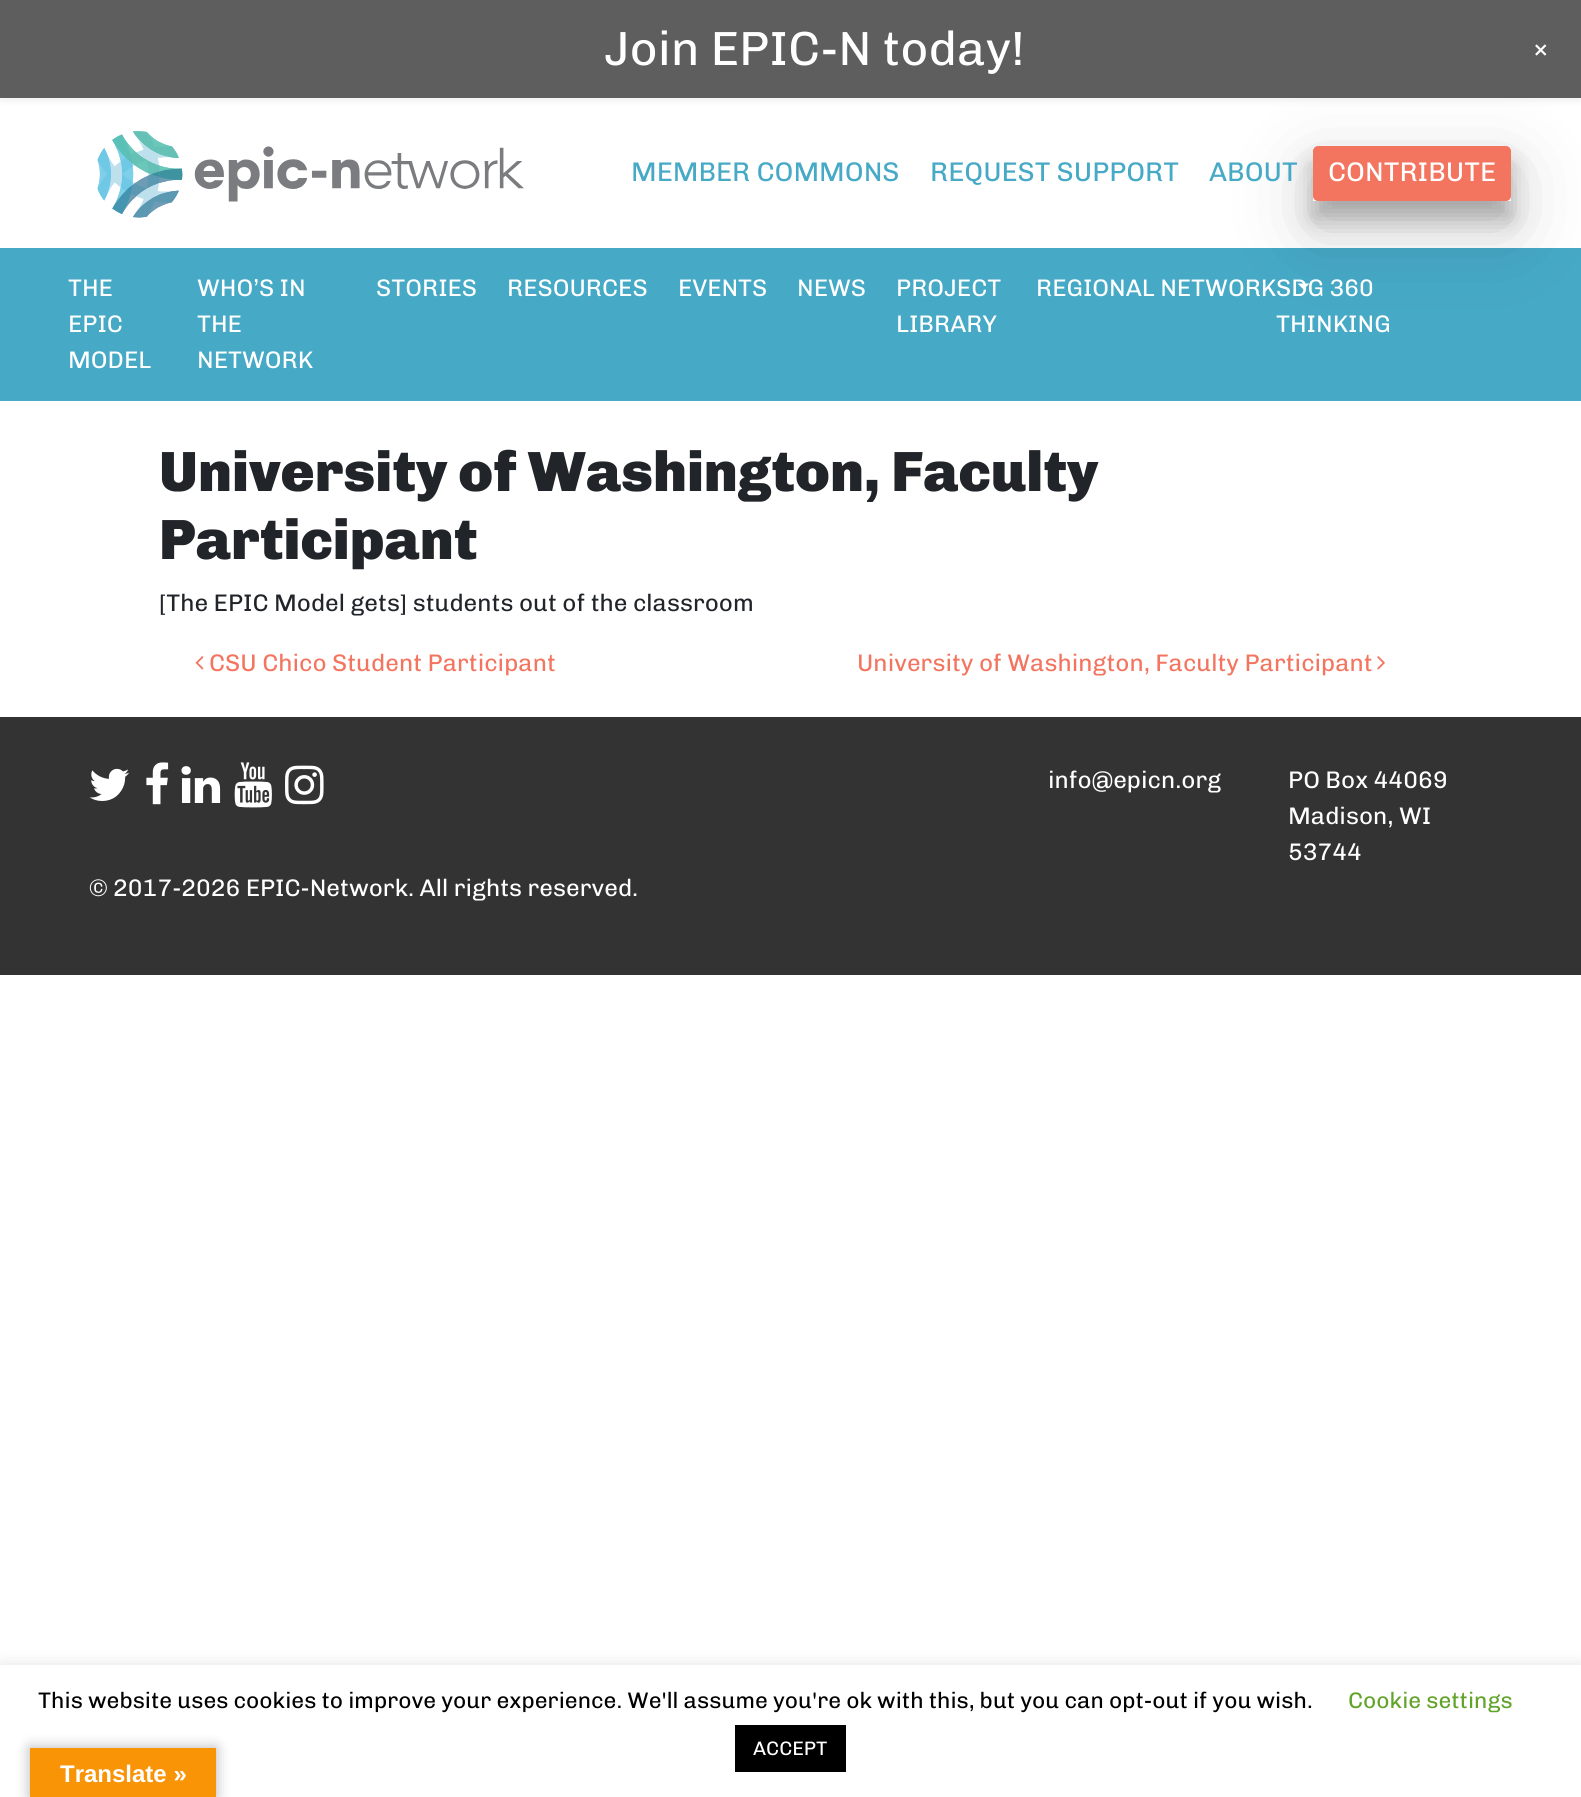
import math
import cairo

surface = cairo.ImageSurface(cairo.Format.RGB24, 1581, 1797)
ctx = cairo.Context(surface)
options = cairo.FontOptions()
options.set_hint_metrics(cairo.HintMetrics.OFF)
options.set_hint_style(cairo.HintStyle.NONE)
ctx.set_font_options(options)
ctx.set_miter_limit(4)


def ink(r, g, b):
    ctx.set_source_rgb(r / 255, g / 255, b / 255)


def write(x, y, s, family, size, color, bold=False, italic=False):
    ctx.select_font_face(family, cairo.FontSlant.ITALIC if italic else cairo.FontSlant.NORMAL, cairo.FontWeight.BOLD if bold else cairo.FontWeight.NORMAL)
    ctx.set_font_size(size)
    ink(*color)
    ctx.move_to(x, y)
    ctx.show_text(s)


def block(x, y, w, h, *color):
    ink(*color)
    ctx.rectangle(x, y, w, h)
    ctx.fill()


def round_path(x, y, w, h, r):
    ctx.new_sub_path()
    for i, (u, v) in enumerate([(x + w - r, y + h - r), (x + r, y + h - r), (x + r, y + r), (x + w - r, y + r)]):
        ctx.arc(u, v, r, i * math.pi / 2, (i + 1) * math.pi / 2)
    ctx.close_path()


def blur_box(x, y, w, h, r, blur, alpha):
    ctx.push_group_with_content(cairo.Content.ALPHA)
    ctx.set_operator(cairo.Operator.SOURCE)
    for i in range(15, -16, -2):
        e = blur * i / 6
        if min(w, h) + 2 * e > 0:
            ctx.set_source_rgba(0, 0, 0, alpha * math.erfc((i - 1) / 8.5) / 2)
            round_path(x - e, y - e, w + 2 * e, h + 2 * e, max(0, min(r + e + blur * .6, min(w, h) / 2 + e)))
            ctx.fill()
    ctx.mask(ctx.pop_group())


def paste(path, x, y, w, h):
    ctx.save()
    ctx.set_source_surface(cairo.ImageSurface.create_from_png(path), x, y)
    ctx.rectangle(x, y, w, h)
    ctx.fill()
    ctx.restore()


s1 = dict(family="Chivo", size=48, color=(255, 255, 255))
s2 = dict(family="Chivo", size=27, color=(255, 255, 255))
s3 = dict(family="Chivo", size=27, color=(70, 169, 198))
s4 = dict(family="Chivo", size=24, color=(255, 255, 255))
s5 = dict(family="Chivo Black", size=56.75, color=(33, 37, 41))
s6 = dict(family="Chivo", size=24, color=(33, 37, 41))
s7 = dict(family="Chivo", size=24, color=(243, 117, 96))
s8 = dict(family="Chivo", size=22.5, color=(0, 0, 0))
s9 = dict(family="Chivo", size=22.5, color=(98, 163, 41))
s10 = dict(family="Chivo", size=19.5, color=(255, 255, 255))
s11 = dict(family="Liberation Sans", size=24, color=(255, 255, 255), bold=True)

ink(255, 255, 255)
ctx.paint()
ink(0, 0, 0)
blur_box(0, 5, 1581, 97, 0, 3, 0.05)
ink(243, 117, 96)
round_path(1313, 146, 198, 55, 5)
ctx.fill()
block(0, 248, 1581, 153, 70, 169, 198)
ctx.save()
ctx.set_fill_rule(cairo.FillRule.EVEN_ODD)
ctx.new_path()
ctx.move_to(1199, 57)
ctx.line_to(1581, 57)
ctx.line_to(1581, 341)
ctx.line_to(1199, 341)
ctx.close_path()
ctx.move_to(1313, 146)
ctx.line_to(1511, 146)
ctx.line_to(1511, 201)
ctx.line_to(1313, 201)
ctx.close_path()
ctx.clip()
ink(0, 0, 0)
blur_box(1313, 171, 198, 56, 0, 37.5, 0.19)
ctx.restore()
block(0, 0, 1581, 98, 94, 94, 94)
write(604, 65, "Join EPIC-N today!", **s1)
ctx.save()
ctx.translate(1530, 49)
ctx.rotate(45 * math.pi / 180)
write(0, 0, "+", **s2)
ctx.restore()
paste("pic1.png", 97, 131, 427, 87)
write(631, 181, "MEMBER COMMONS", **s3)
write(930, 181, "REQUEST SUPPORT", **s3)
write(1209, 181, "ABOUT", **s3)
ctx.save()
ctx.set_fill_rule(cairo.FillRule.EVEN_ODD)
ctx.new_path()
ctx.move_to(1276, 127)
ctx.line_to(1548, 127)
ctx.line_to(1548, 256)
ctx.line_to(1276, 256)
ctx.close_path()
ctx.move_to(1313, 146)
ctx.line_to(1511, 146)
ctx.line_to(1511, 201)
ctx.line_to(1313, 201)
ctx.close_path()
ctx.clip()
ink(0, 0, 0)
blur_box(1313, 164, 198, 55, 0, 12, 0.24)
ctx.restore()
write(1328, 181, "CONTRIBUTE", **s2)
write(68, 296, "THE", **s4)
write(68, 332, "EPIC", **s4)
write(68, 368, "MODEL", **s4)
write(197, 296, "WHO’S IN", **s4)
write(197, 332, "THE", **s4)
write(197, 368, "NETWORK", **s4)
write(376, 296, "STORIES", **s4)
write(507, 296, "RESOURCES", **s4)
write(678, 296, "EVENTS", **s4)
write(797, 296, "NEWS", **s4)
write(896, 296, "PROJECT", **s4)
write(896, 332, "LIBRARY", **s4)
write(1036, 296, "REGIONAL NETWORK", **s4)
ctx.new_path()
ctx.move_to(1297.5, 283.5)
ctx.line_to(1309.5, 283.5)
ctx.line_to(1303.5, 289.5)
ctx.close_path()
ctx.fill()
write(1276, 296, "SDG 360", **s4)
write(1276, 332, "THINKING", **s4)
write(159, 491, "University of Washington, Faculty", **s5)
write(159, 559, "Participant", **s5)
write(159, 611, "[The EPIC Model gets] students out of the classroom", **s6)
paste("pic2.png", 195, 656, 9, 14)
write(209, 671, "CSU Chico Student Participant", **s7)
write(857, 671, "University of Washington, Faculty Participant", **s7)
paste("pic3.png", 1377, 656, 8, 14)
block(0, 717, 1581, 258, 51, 51, 51)
paste("pic4.png", 89, 768, 40, 33)
paste("pic5.png", 146, 762, 23, 43)
paste("pic6.png", 181, 766, 40, 37)
paste("pic7.png", 234, 762, 38, 46)
paste("pic8.png", 285, 765, 39, 40)
write(1048, 788, "info@epicn.org", **s4)
write(1288, 788, "PO Box 44069", **s4)
write(1288, 824, "Madison, WI", **s4)
write(1288, 860, "53744", **s4)
write(89, 896, "© 2017-2026 EPIC-Network. All rights reserved.", **s4)
ink(172, 171, 171)
blur_box(0, 1664, 1581, 132, 0, 7.5, 0.3)
block(0, 1665, 1581, 132, 255, 255, 255)
write(38, 1708, "This website uses cookies to improve your experience. We'll assume you're ok with this, but you can opt-out if you wish.", **s8)
write(1348, 1708, "Cookie settings", **s9)
block(735, 1725, 111, 47, 0, 0, 0)
write(753, 1755, "ACCEPT", **s10)
ink(0, 0, 0)
blur_box(30, 1748, 186, 49, 0, 7, 0.3)
block(30, 1748, 186, 49, 248, 148, 6)
write(60, 1782, "Translate »", **s11)
surface.write_to_png("screenshot.png")
